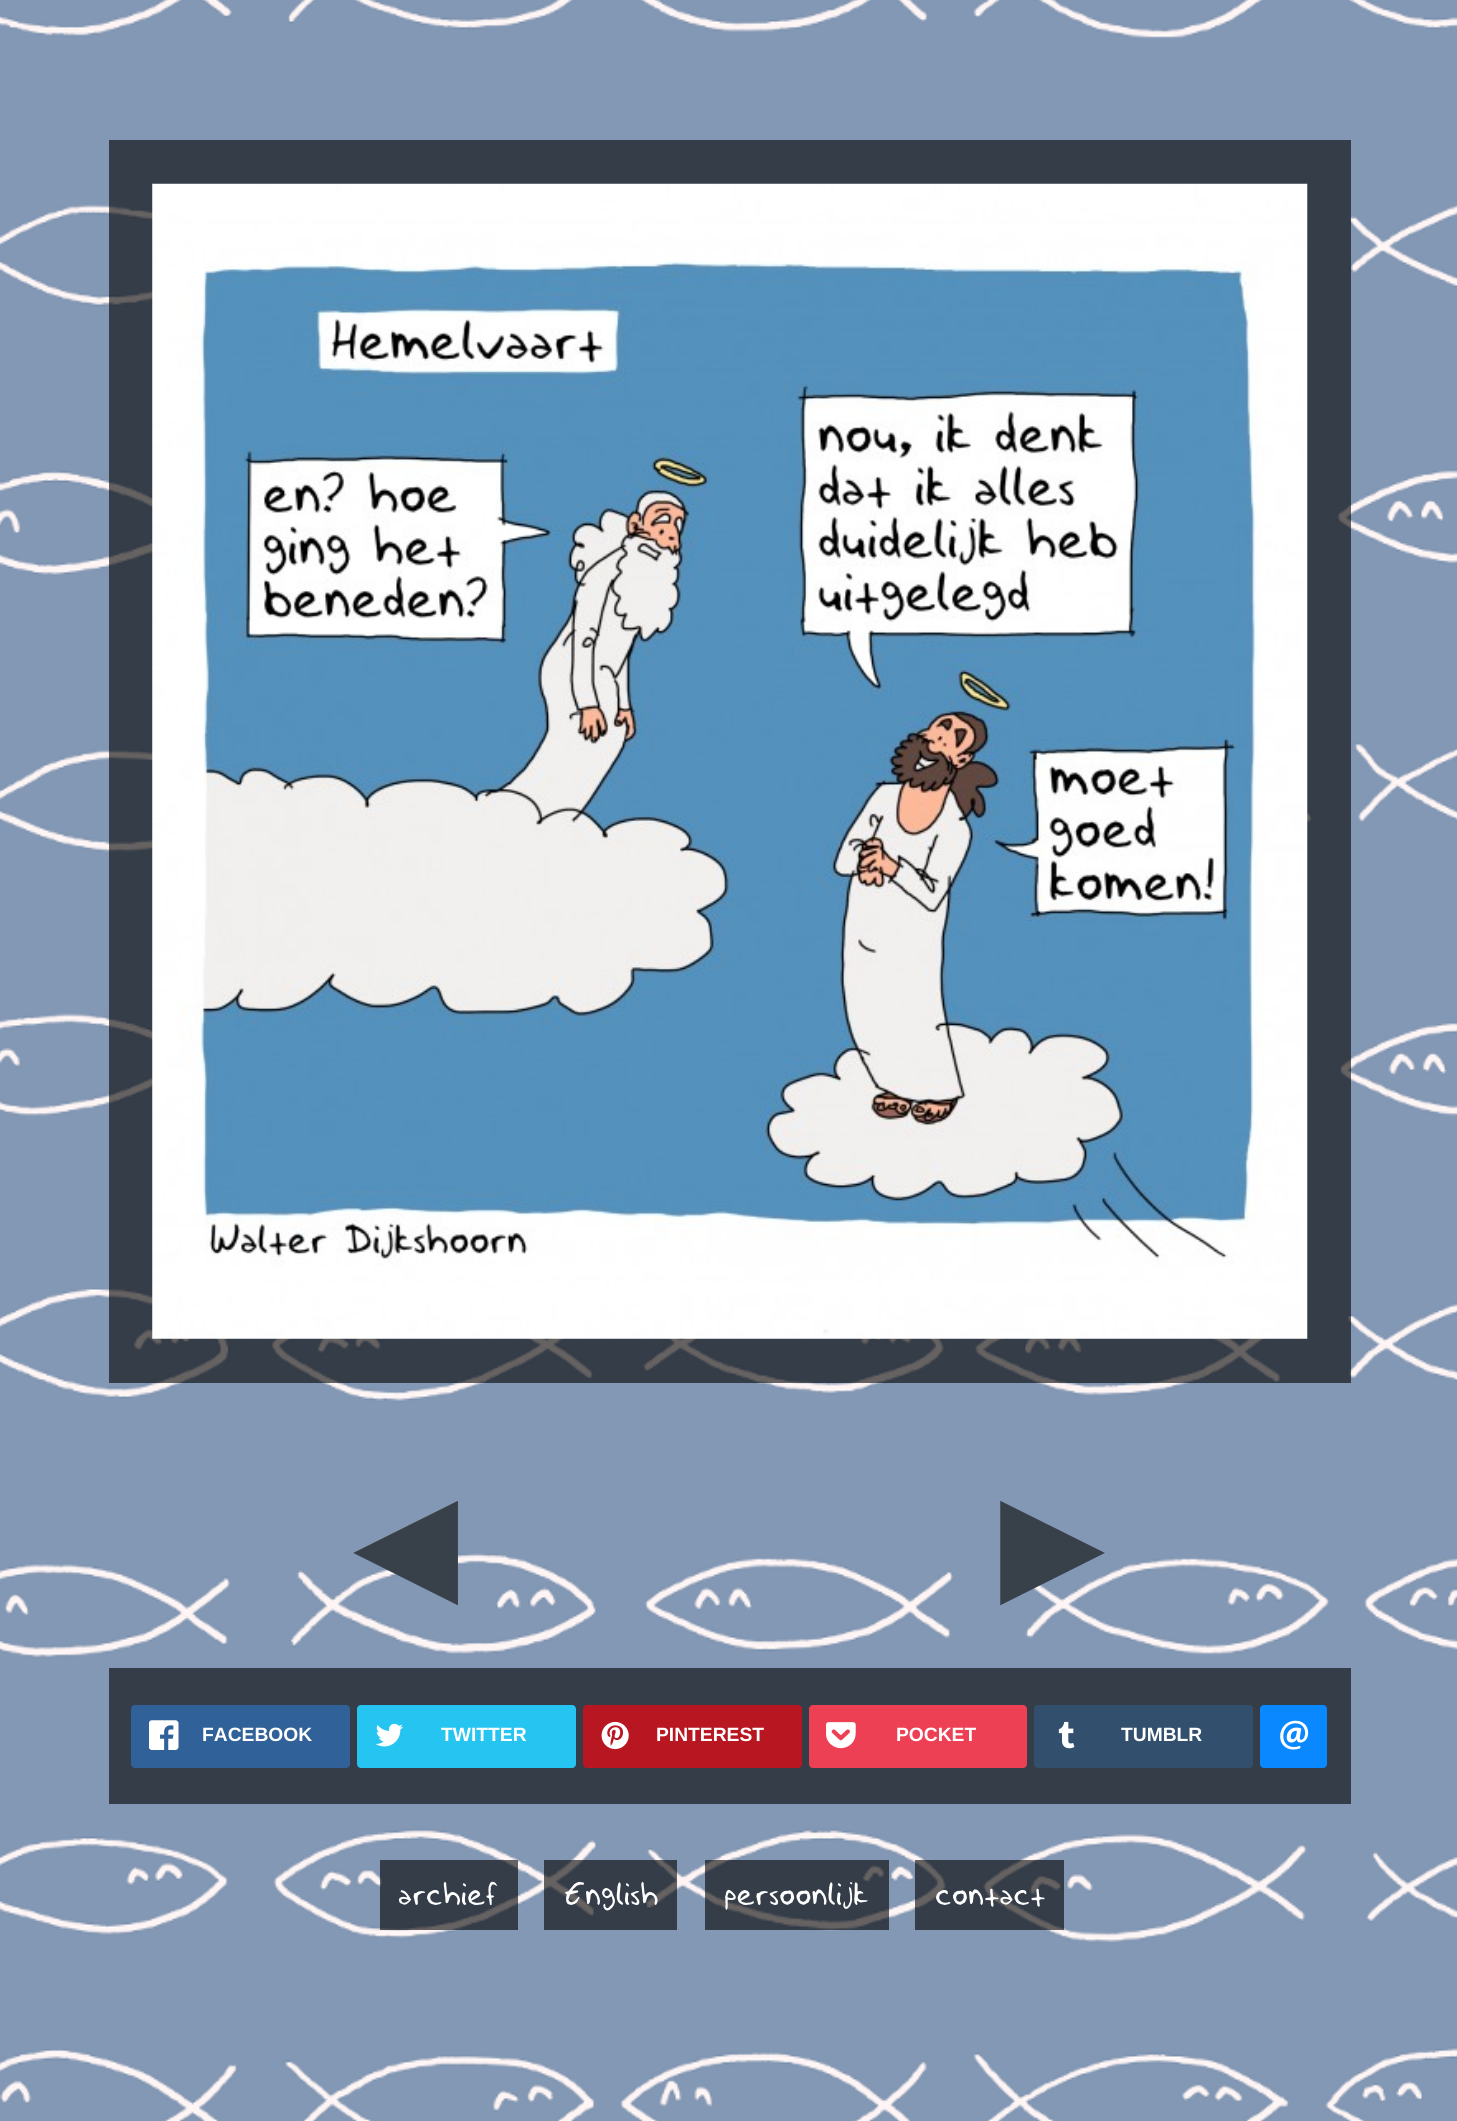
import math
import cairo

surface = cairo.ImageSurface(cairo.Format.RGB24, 1457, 2121)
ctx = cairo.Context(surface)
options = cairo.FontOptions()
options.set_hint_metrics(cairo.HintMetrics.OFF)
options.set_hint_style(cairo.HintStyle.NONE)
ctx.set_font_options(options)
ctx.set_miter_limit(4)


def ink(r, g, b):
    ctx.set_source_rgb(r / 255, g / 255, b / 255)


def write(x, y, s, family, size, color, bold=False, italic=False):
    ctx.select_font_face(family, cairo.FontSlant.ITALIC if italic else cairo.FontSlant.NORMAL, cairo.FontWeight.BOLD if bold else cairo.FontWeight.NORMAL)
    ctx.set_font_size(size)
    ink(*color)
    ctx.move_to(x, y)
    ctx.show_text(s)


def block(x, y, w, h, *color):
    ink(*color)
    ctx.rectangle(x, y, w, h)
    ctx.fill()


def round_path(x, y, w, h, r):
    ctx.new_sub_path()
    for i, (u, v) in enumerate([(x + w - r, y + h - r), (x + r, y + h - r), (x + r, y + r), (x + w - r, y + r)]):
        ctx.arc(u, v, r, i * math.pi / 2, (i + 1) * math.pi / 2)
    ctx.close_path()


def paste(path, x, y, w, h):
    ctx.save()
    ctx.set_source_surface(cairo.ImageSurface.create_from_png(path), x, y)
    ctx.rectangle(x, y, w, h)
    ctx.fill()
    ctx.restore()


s1 = dict(family="Liberation Sans", size=175, color=(56, 64, 74))
s2 = dict(family="Liberation Sans", size=19.25, color=(255, 255, 255), bold=True)
s3 = dict(family="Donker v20", size=26.25, color=(255, 255, 255))

ink(255, 255, 255)
ctx.paint()
paste("pic1.png", 0, 0, 1457, 2121)
ctx.set_source_rgba(0, 0, 0, 0.6)
ctx.rectangle(109, 140, 1242, 1243)
ctx.fill()
paste("pic2.png", 152, 183, 1156, 1156)
write(319, 1603, "◄", **s1)
write(966, 1603, "►", **s1)
block(109, 1668, 1242, 136, 52, 61, 72)
ink(48, 97, 153)
round_path(131, 1705, 219, 63, 4)
ctx.fill()
paste("pic3.png", 149, 1720, 30, 30)
write(202, 1741, "FACEBOOK", **s2)
ink(38, 196, 241)
round_path(357, 1705, 219, 63, 4)
ctx.fill()
paste("pic4.png", 376, 1723, 27, 24)
write(441, 1741, "TWITTER", **s2)
ink(184, 22, 33)
round_path(583, 1705, 219, 63, 4)
ctx.fill()
paste("pic5.png", 601, 1721, 28, 29)
write(656, 1741, "PINTEREST", **s2)
ink(237, 64, 84)
round_path(809, 1705, 218, 63, 4)
ctx.fill()
paste("pic6.png", 826, 1722, 30, 27)
write(896, 1741, "POCKET", **s2)
ink(50, 80, 109)
round_path(1034, 1705, 219, 63, 4)
ctx.fill()
paste("pic7.png", 1058, 1721, 17, 28)
write(1121, 1741, "TUMBLR", **s2)
ink(10, 136, 255)
round_path(1260, 1705, 67, 63, 4)
ctx.fill()
paste("pic8.png", 1280, 1720, 29, 30)
ctx.set_source_rgba(0, 0, 0, 0.6)
ctx.rectangle(380, 1860, 138, 70)
ctx.fill()
write(398, 1905, "archief", **s3)
ctx.set_source_rgba(0, 0, 0, 0.6)
ctx.rectangle(544, 1860, 133, 70)
ctx.fill()
write(564, 1905, "English", **s3)
ctx.set_source_rgba(0, 0, 0, 0.6)
ctx.rectangle(705, 1860, 184, 70)
ctx.fill()
write(724, 1905, "persoonlijk", **s3)
ctx.set_source_rgba(0, 0, 0, 0.6)
ctx.rectangle(915, 1860, 149, 70)
ctx.fill()
write(935, 1905, "contact", **s3)
surface.write_to_png("screenshot.png")
